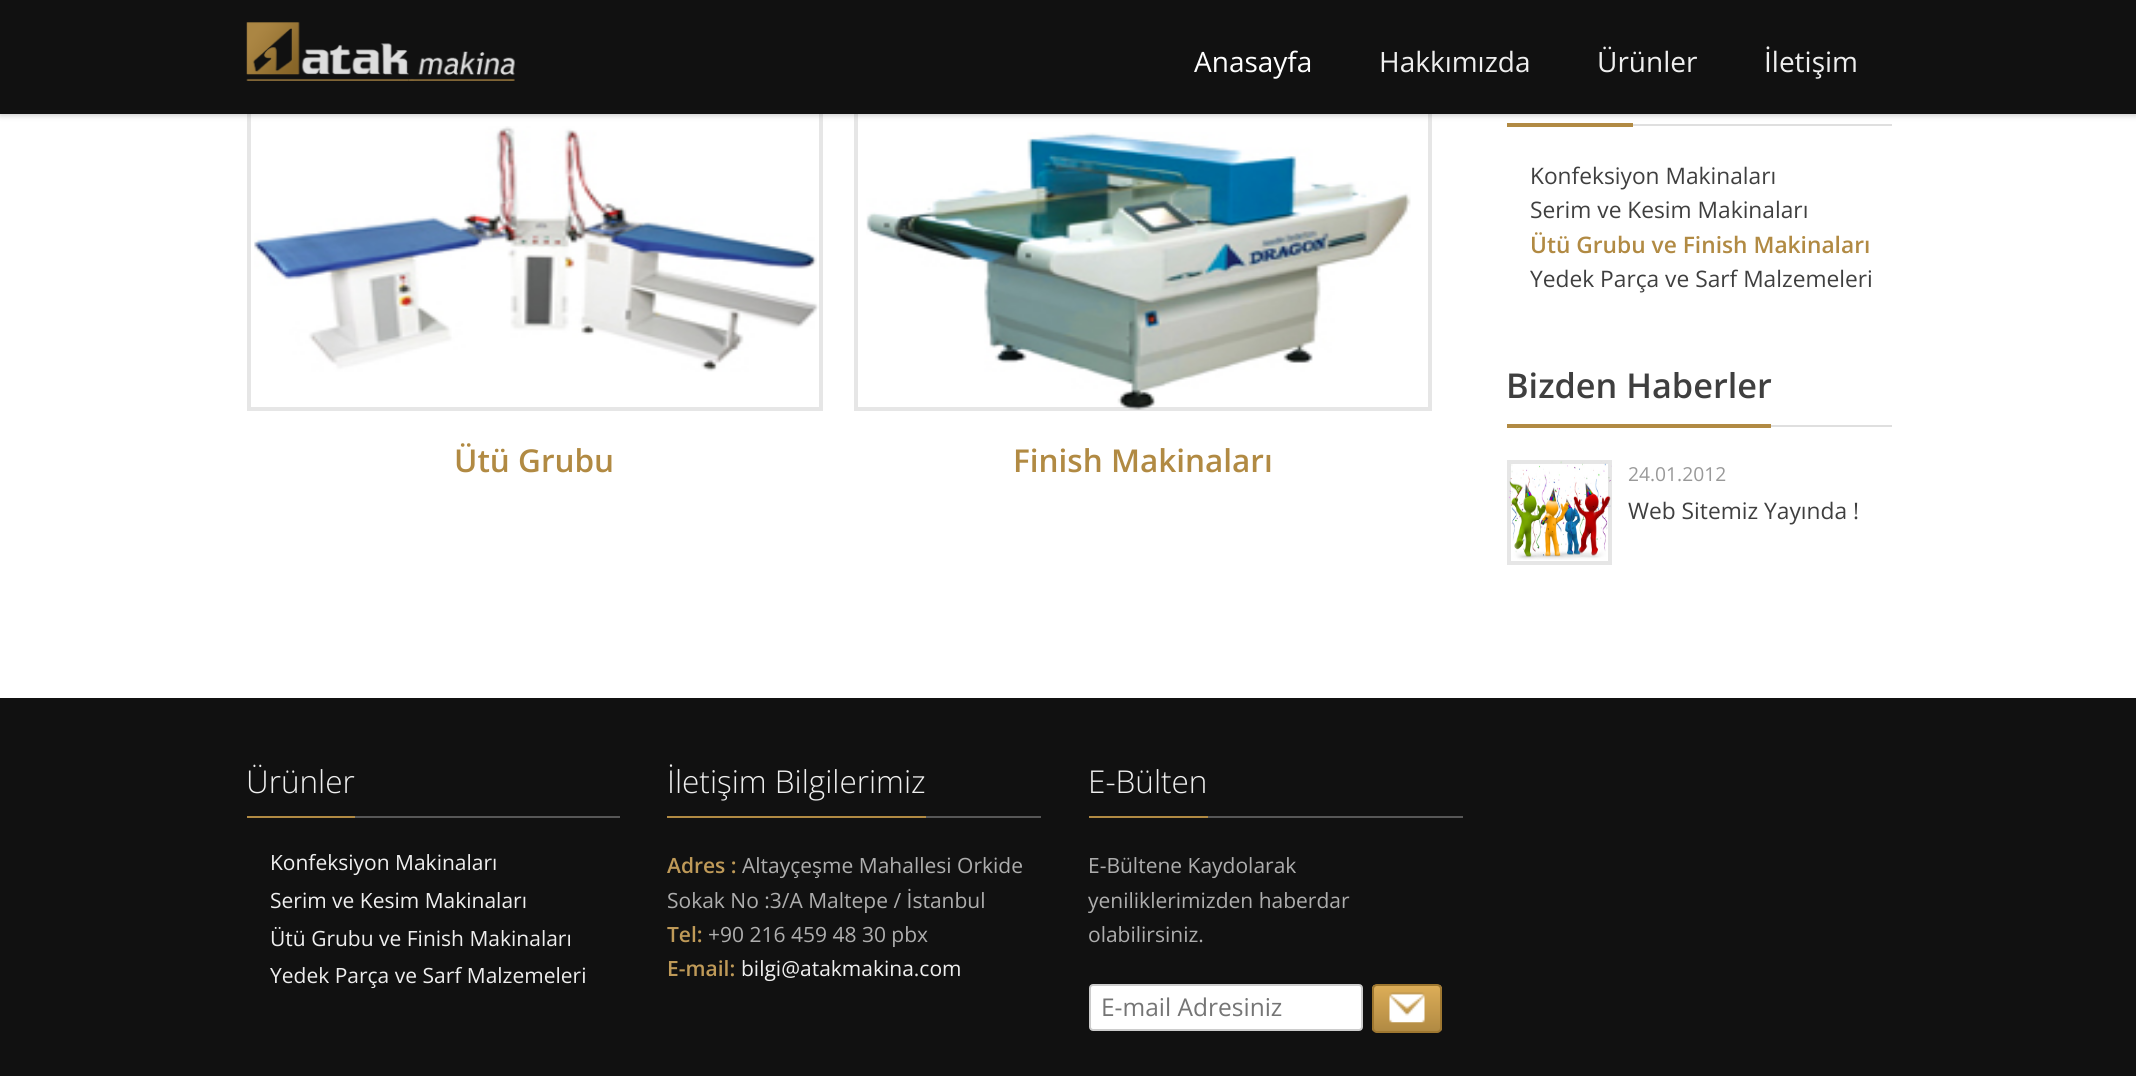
import math
import cairo

surface = cairo.ImageSurface(cairo.Format.RGB24, 2136, 1076)
ctx = cairo.Context(surface)
options = cairo.FontOptions()
options.set_hint_metrics(cairo.HintMetrics.OFF)
options.set_hint_style(cairo.HintStyle.NONE)
ctx.set_font_options(options)
ctx.set_miter_limit(4)


def ink(r, g, b):
    ctx.set_source_rgb(r / 255, g / 255, b / 255)


def write(x, y, s, family, size, color, bold=False, italic=False):
    ctx.select_font_face(family, cairo.FontSlant.ITALIC if italic else cairo.FontSlant.NORMAL, cairo.FontWeight.BOLD if bold else cairo.FontWeight.NORMAL)
    ctx.set_font_size(size)
    ink(*color)
    ctx.move_to(x, y)
    ctx.show_text(s)


def block(x, y, w, h, *color):
    ink(*color)
    ctx.rectangle(x, y, w, h)
    ctx.fill()


def round_path(x, y, w, h, r):
    ctx.new_sub_path()
    for i, (u, v) in enumerate([(x + w - r, y + h - r), (x + r, y + h - r), (x + r, y + r), (x + w - r, y + r)]):
        ctx.arc(u, v, r, i * math.pi / 2, (i + 1) * math.pi / 2)
    ctx.close_path()


def blur_box(x, y, w, h, r, blur, alpha):
    ctx.push_group_with_content(cairo.Content.ALPHA)
    ctx.set_operator(cairo.Operator.SOURCE)
    for i in range(15, -16, -2):
        e = blur * i / 6
        if min(w, h) + 2 * e > 0:
            ctx.set_source_rgba(0, 0, 0, alpha * math.erfc((i - 1) / 8.5) / 2)
            round_path(x - e, y - e, w + 2 * e, h + 2 * e, max(0, min(r + e + blur * .6, min(w, h) / 2 + e)))
            ctx.fill()
    ctx.mask(ctx.pop_group())


def paste(path, x, y, w, h):
    ctx.save()
    ctx.set_source_surface(cairo.ImageSurface.create_from_png(path), x, y)
    ctx.rectangle(x, y, w, h)
    ctx.fill()
    ctx.restore()


s1 = dict(family="Open Sans", size=28, color=(255, 255, 255))
s2 = dict(family="Open Sans", size=28, color=(239, 239, 239))
s3 = dict(family="Open Sans SemiBold", size=31.5, color=(177, 138, 67))
s4 = dict(family="Open Sans", size=22.75, color=(63, 63, 63))
s5 = dict(family="Open Sans SemiBold", size=22.75, color=(177, 138, 67))
s6 = dict(family="Open Sans SemiBold", size=34.25, color=(63, 63, 63))
s7 = dict(family="Open Sans", size=19.25, color=(153, 153, 153))
s8 = dict(family="Open Sans Light", size=31.5, color=(239, 239, 239))
s9 = dict(family="Open Sans", size=21, color=(239, 239, 239))
s10 = dict(family="Open Sans SemiBold", size=21, color=(191, 154, 88))
s11 = dict(family="Open Sans", size=21, color=(174, 174, 174))
s12 = dict(family="Open Sans", size=24.5, color=(117, 117, 117))

ink(255, 255, 255)
ctx.paint()
paste("pic2.png", 254, 126, 565, 246)
ctx.rectangle(249, 98, 572, 311)
ink(230, 230, 230)
ctx.set_line_width(4)
ctx.stroke()
paste("pic3.png", 866, 132, 545, 278)
ctx.rectangle(856, 98, 574, 311)
ctx.set_source_rgba(0, 0, 0, 0.1)
ctx.stroke()
block(1633, 124, 259, 2, 223, 223, 223)
block(1507, 123, 126, 4, 177, 138, 67)
ink(0, 0, 0)
blur_box(0, 0, 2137, 114, 0, 3.5, 0.3)
block(0, 0, 2136, 114, 17, 17, 17)
paste("pic1.png", 246, 22, 269, 59)
write(1194, 72, "Anasayfa", **s1)
write(1379, 72, "Hakkımızda", **s2)
write(1597, 72, "Ürünler", **s2)
write(1764, 72, "İletişim", **s2)
write(454, 472, "Ütü Grubu", **s3)
write(1013, 472, "Finish Makinaları", **s3)
write(1530, 184, "Konfeksiyon Makinaları", **s4)
write(1530, 218, "Serim ve Kesim Makinaları", **s4)
write(1530, 253, "Ütü Grubu ve Finish Makinaları", **s5)
write(1530, 287, "Yedek Parça ve Sarf Malzemeleri", **s4)
block(1771, 425, 121, 2, 223, 223, 223)
block(1507, 424, 264, 4, 177, 138, 67)
write(1506, 398, "Bizden Haberler", **s6)
paste("pic4.png", 1508, 461, 104, 99)
ctx.rectangle(1509, 462, 101, 101)
ctx.set_source_rgba(0, 0, 0, 0.1)
ctx.stroke()
write(1628, 481, "24.01.2012", **s7)
write(1628, 519, "Web Sitemiz Yayında !", **s4)
block(0, 698, 2136, 378, 17, 17, 17)
block(355, 816, 265, 2, 87, 87, 87)
block(247, 816, 108, 2, 177, 138, 67)
write(246, 793, "Ürünler", **s8)
write(270, 870, "Konfeksiyon Makinaları", **s9)
write(270, 908, "Serim ve Kesim Makinaları", **s9)
write(270, 946, "Ütü Grubu ve Finish Makinaları", **s9)
write(270, 983, "Yedek Parça ve Sarf Malzemeleri", **s9)
block(926, 816, 115, 2, 87, 87, 87)
block(667, 816, 259, 2, 177, 138, 67)
write(667, 793, "İletişim Bilgilerimiz", **s8)
write(667, 873, "Adres :", **s10)
write(742, 873, "Altayçeşme Mahallesi Orkide", **s11)
write(667, 908, "Sokak No :3/A Maltepe / İstanbul", **s11)
write(667, 942, "Tel:", **s10)
write(708, 942, "+90 216 459 48 30 pbx", **s11)
write(667, 976, "E-mail:", **s10)
write(741, 976, "bilgi@atakmakina.com", **s9)
block(1208, 816, 255, 2, 87, 87, 87)
block(1089, 816, 119, 2, 177, 138, 67)
write(1088, 793, "E-Bülten", **s8)
write(1088, 873, "E-Bültene Kaydolarak", **s11)
write(1088, 908, "yeniliklerimizden haberdar", **s11)
write(1088, 942, "olabilirsiniz.", **s11)
ink(255, 255, 255)
round_path(1090, 985, 272, 45, 3)
ctx.fill_preserve()
ink(204, 204, 204)
ctx.set_line_width(2)
ctx.stroke()
write(1101, 1016, "E-mail Adresiniz", **s12)
ctx.save()
round_path(1372, 984, 70, 49, 5)
ctx.clip()
gradient = cairo.LinearGradient(1407, 985, 1407, 1031)
gradient.add_color_stop_rgba(0, 0.867, 0.682, 0.345, 1)
gradient.add_color_stop_rgba(1, 0.694, 0.541, 0.263, 1)
ctx.set_source(gradient)
ctx.rectangle(1372, 985, 70, 46)
ctx.fill()
ctx.restore()
round_path(1373, 985, 68, 47, 4)
ink(158, 119, 48)
ctx.stroke()
paste("pic5.png", 1389, 992, 36, 31)
surface.write_to_png("screenshot.png")
